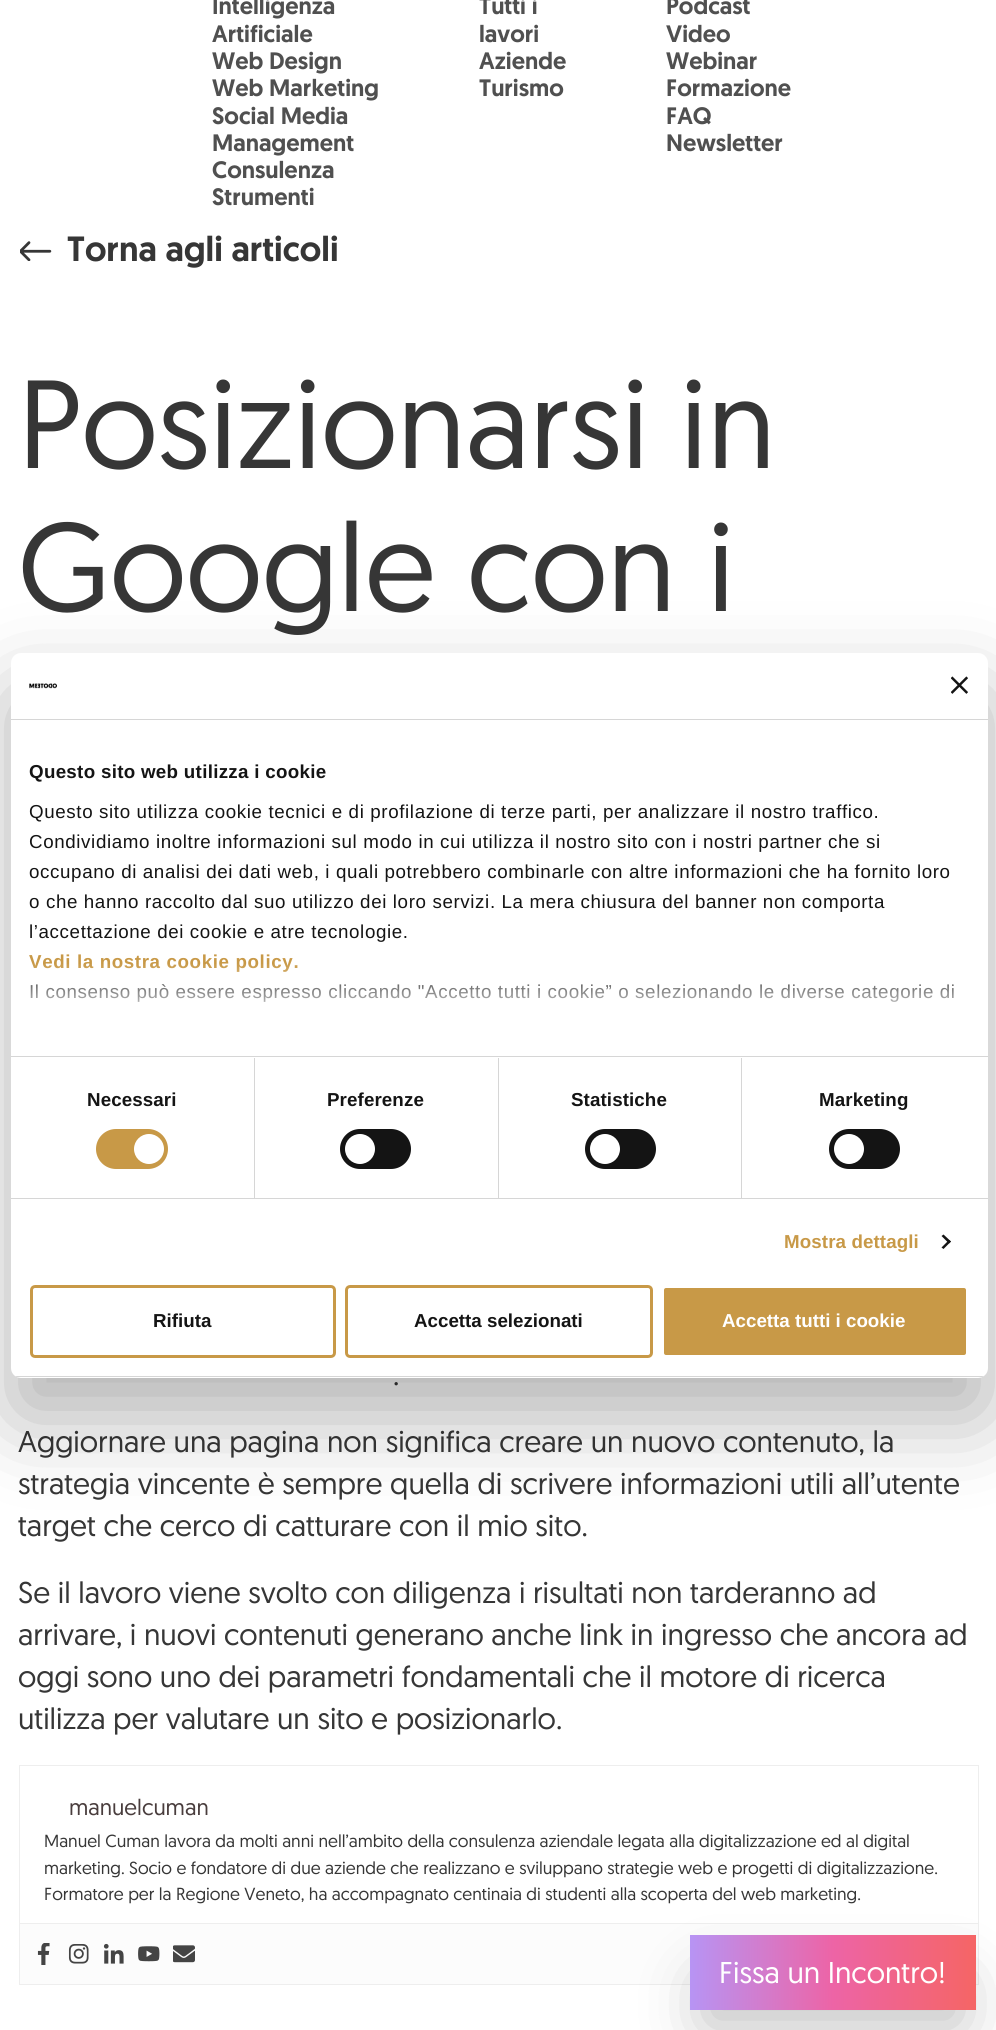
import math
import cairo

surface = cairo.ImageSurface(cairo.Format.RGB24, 996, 2030)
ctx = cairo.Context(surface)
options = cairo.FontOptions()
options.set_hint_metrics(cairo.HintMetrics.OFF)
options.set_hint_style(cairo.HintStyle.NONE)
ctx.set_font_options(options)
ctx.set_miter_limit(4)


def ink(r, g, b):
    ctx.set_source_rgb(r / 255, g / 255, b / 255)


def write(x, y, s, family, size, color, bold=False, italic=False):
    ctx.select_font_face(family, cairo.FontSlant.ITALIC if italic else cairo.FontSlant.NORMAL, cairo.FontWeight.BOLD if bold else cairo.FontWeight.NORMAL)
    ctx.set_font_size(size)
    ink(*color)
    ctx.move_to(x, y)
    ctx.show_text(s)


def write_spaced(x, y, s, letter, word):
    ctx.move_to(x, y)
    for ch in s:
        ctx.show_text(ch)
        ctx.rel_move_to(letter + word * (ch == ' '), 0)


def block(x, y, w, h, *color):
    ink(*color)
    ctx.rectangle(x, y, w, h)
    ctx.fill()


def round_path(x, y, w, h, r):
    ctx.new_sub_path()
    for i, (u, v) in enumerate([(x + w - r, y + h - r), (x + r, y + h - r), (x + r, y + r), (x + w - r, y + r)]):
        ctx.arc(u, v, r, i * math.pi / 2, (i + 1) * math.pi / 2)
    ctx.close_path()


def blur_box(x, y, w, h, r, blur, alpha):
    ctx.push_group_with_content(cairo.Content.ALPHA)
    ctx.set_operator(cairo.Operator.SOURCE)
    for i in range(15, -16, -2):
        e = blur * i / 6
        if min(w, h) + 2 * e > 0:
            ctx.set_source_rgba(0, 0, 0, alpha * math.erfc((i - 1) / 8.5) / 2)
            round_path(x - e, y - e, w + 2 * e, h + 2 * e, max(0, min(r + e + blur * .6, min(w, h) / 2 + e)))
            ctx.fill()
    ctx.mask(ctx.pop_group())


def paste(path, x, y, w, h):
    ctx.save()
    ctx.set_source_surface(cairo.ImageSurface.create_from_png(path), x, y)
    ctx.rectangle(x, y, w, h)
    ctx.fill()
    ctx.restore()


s1 = dict(family="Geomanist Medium", size=23.75, color=(80, 80, 80))
s2 = dict(family="Geomanist Medium", size=35, color=(54, 54, 54))
s3 = dict(family="Geomanist", size=125, color=(54, 54, 54))
s4 = dict(family="Geomanist", size=30, color=(54, 54, 54))
s5 = dict(family="Geomanist", size=22.5, color=(73, 61, 61))
s6 = dict(family="Geomanist", size=17.5, color=(54, 54, 54))
s7 = dict(family="Liberation Sans", size=18.75, color=(20, 20, 20), bold=True)
s8 = dict(family="Liberation Sans", size=18.75, color=(255, 255, 255), bold=True)
s9 = dict(family="Geomanist", size=30, color=(255, 255, 255))

ink(255, 255, 255)
ctx.paint()
write(212, 14, "Intelligenza", **s1)
write(212, 42, "Artificiale", **s1)
write(212, 69, "Web Design", **s1)
write(212, 96, "Web Marketing", **s1)
write(212, 124, "Social Media", **s1)
write(212, 151, "Management", **s1)
write(212, 178, "Consulenza", **s1)
write(212, 205, "Strumenti", **s1)
write(479, 14, "Tutti i", **s1)
write(479, 42, "lavori", **s1)
write(479, 69, "Aziende", **s1)
write(479, 96, "Turismo", **s1)
write(666, 14, "Podcast", **s1)
write(666, 42, "Video", **s1)
write(666, 69, "Webinar", **s1)
write(666, 96, "Formazione", **s1)
write(666, 124, "FAQ", **s1)
write(666, 151, "Newsletter", **s1)
paste("pic1.png", 20, 241, 32, 20)
write(67, 261, "Torna agli articoli", **s2)
write(18, 468, "Posizionarsi in", **s3)
write(18, 611, "Google con i", **s3)
write(393, 1385, ".", **s4)
write(18, 1452, "Aggiornare una pagina non significa creare un nuovo contenuto, la", **s4)
write(18, 1494, "strategia vincente è sempre quella di scrivere informazioni utili all’utente", **s4)
write(18, 1536, "target che cerco di catturare con il mio sito.", **s4)
write(18, 1603, "Se il lavoro viene svolto con diligenza i risultati non tarderanno ad", **s4)
write(18, 1645, "arrivare, i nuovi contenuti generano anche link in ingresso che ancora ad", **s4)
write(18, 1687, "oggi sono uno dei parametri fondamentali che il motore di ricerca", **s4)
write(18, 1729, "utilizza per valutare un sito e posizionarlo.", **s4)
ctx.rectangle(19.5, 1765.5, 959, 219)
ink(238, 238, 238)
ctx.set_line_width(1)
ctx.stroke()
write(69, 1815, "manuelcuman", **s5)
write(44, 1847, "Manuel Cuman lavora da molti anni nell’ambito della consulenza aziendale legata alla digitalizzazione ed al digital", **s6)
write(44, 1874, "marketing. Socio e fondatore di due aziende che realizzano e sviluppano strategie web e progetti di digitalizzazione.", **s6)
write(44, 1900, "Formatore per la Regione Veneto, ha accompagnato centinaia di studenti alla scoperta del web marketing.", **s6)
block(20, 1924, 958, 60, 252, 252, 252)
block(20, 1923, 958, 1, 238, 238, 238)
paste("pic2.png", 37, 1943, 13, 22)
paste("pic3.png", 68, 1944, 21, 20)
paste("pic4.png", 103, 1943, 21, 21)
paste("pic5.png", 138, 1946, 22, 16)
paste("pic6.png", 173, 1945, 22, 18)
ink(0, 0, 0)
blur_box(11, 693, 977, 725, 10, 42.5, 0.3)
ink(255, 255, 255)
round_path(11, 653, 977, 725, 10)
ctx.fill()
block(11, 719, 977, 1, 214, 214, 214)
paste("pic7.png", 29, 683, 28, 6)
paste("pic8.png", 951, 676, 17, 18)
block(11, 1056, 977, 1, 214, 214, 214)
ctx.select_font_face("Liberation Sans", cairo.FontSlant.NORMAL, cairo.FontWeight.BOLD)
ctx.set_font_size(18.75)
ink(20, 20, 20)
write_spaced(29, 778, "Questo sito web utilizza i cookie", 0.3, 0)
ctx.select_font_face("Liberation Sans")
write_spaced(29, 818, "Questo sito utilizza cookie tecnici e di profilazione di terze parti, per analizzare il nostro traffico.", 0.62, 0)
write_spaced(29, 848, "Condividiamo inoltre informazioni sul modo in cui utilizza il nostro sito con i nostri partner che si", 0.62, 0)
write_spaced(29, 878, "occupano di analisi dei dati web, i quali potrebbero combinarle con altre informazioni che ha fornito loro", 0.62, 0)
write_spaced(29, 908, "o che hanno raccolto dal suo utilizzo dei loro servizi. La mera chiusura del banner non comporta", 0.62, 0)
write_spaced(29, 938, "l’accettazione dei cookie e atre tecnologie.", 0.62, 0)
ctx.select_font_face("Liberation Sans", cairo.FontSlant.NORMAL, cairo.FontWeight.BOLD)
ink(200, 153, 71)
write_spaced(29, 968, "Vedi la nostra cookie policy.", 0.62, 0)
ctx.select_font_face("Liberation Sans")
ink(20, 20, 20)
write_spaced(29, 998, "Il consenso può essere espresso cliccando \"Accetto tutti i cookie” o selezionando le diverse categorie di", 0.62, 0)
gradient = cairo.LinearGradient(491, 1056, 491, 963)
gradient.add_color_stop_rgba(0, 1, 1, 1, 1)
gradient.add_color_stop_rgba(0.5, 1, 1, 1, 0.8)
gradient.add_color_stop_rgba(1, 1, 1, 1, 0)
ctx.set_source(gradient)
ctx.rectangle(30, 964, 924, 38)
ctx.fill()
block(11, 1198, 977, 1, 214, 214, 214)
block(254, 1058, 1, 140, 214, 214, 214)
ctx.select_font_face("Liberation Sans", cairo.FontSlant.NORMAL, cairo.FontWeight.BOLD)
ink(20, 20, 20)
write_spaced(87, 1106, "Necessari", 0.1, 0)
ink(200, 153, 71)
round_path(96, 1129, 72, 40, 20)
ctx.fill()
ink(255, 255, 255)
ctx.arc(149, 1149, 15, 0, 2 * math.pi)
ctx.fill()
block(498, 1058, 1, 140, 214, 214, 214)
ink(20, 20, 20)
write_spaced(327, 1106, "Preferenze", 0.1, 0)
round_path(340, 1129, 71, 40, 20)
ctx.fill()
ink(255, 255, 255)
ctx.arc(360, 1149, 15, 0, 2 * math.pi)
ctx.fill()
block(741, 1058, 1, 140, 214, 214, 214)
ink(20, 20, 20)
write_spaced(571, 1106, "Statistiche", 0.1, 0)
round_path(585, 1129, 71, 40, 20)
ctx.fill()
ink(255, 255, 255)
ctx.arc(605, 1149, 15, 0, 2 * math.pi)
ctx.fill()
ink(20, 20, 20)
write_spaced(819, 1106, "Marketing", 0.1, 0)
round_path(829, 1129, 71, 40, 20)
ctx.fill()
ink(255, 255, 255)
ctx.arc(849, 1149, 15, 0, 2 * math.pi)
ctx.fill()
ink(200, 153, 71)
write_spaced(784, 1248, "Mostra dettagli", 0.1, 0)
ink(20, 20, 20)
ctx.new_path()
ctx.move_to(943.5, 1234.5)
ctx.line_to(951, 1241.5)
ctx.line_to(949, 1243.5)
ctx.line_to(941.5, 1236)
ctx.close_path()
ctx.fill()
ctx.new_path()
ctx.move_to(949, 1240)
ctx.line_to(951, 1241.5)
ctx.line_to(943.5, 1249)
ctx.line_to(941.5, 1247.5)
ctx.close_path()
ctx.fill()
ctx.save()
round_path(11, 653, 977, 725, 10)
ctx.clip()
block(11, 1376, 977, 1, 214, 214, 214)
ctx.restore()
round_path(31.5, 1286.5, 303, 70, 3.5)
ink(200, 153, 71)
ctx.set_line_width(3)
ctx.stroke()
write(153, 1327, "Rifiuta", **s7)
round_path(346.5, 1286.5, 305, 70, 3.5)
ink(200, 153, 71)
ctx.stroke()
write(414, 1327, "Accetta selezionati", **s7)
ink(200, 153, 71)
round_path(662.5, 1286.5, 305, 70, 3.5)
ctx.fill_preserve()
ink(255, 255, 255)
ctx.stroke()
write(722, 1327, "Accetta tutti i cookie", **s8)
ink(0, 0, 0)
blur_box(705, 1981, 256, 45, 0, 31, 0.25)
gradient = cairo.LinearGradient(690, 1973, 976, 1973)
gradient.add_color_stop_rgba(0, 0.718, 0.58, 0.957, 1)
gradient.add_color_stop_rgba(0.5, 0.929, 0.392, 0.651, 1)
gradient.add_color_stop_rgba(1, 0.961, 0.396, 0.396, 1)
ctx.set_source(gradient)
ctx.rectangle(690, 1935, 286, 75)
ctx.fill()
write(719, 1983, "Fissa un Incontro!", **s9)
surface.write_to_png("screenshot.png")
